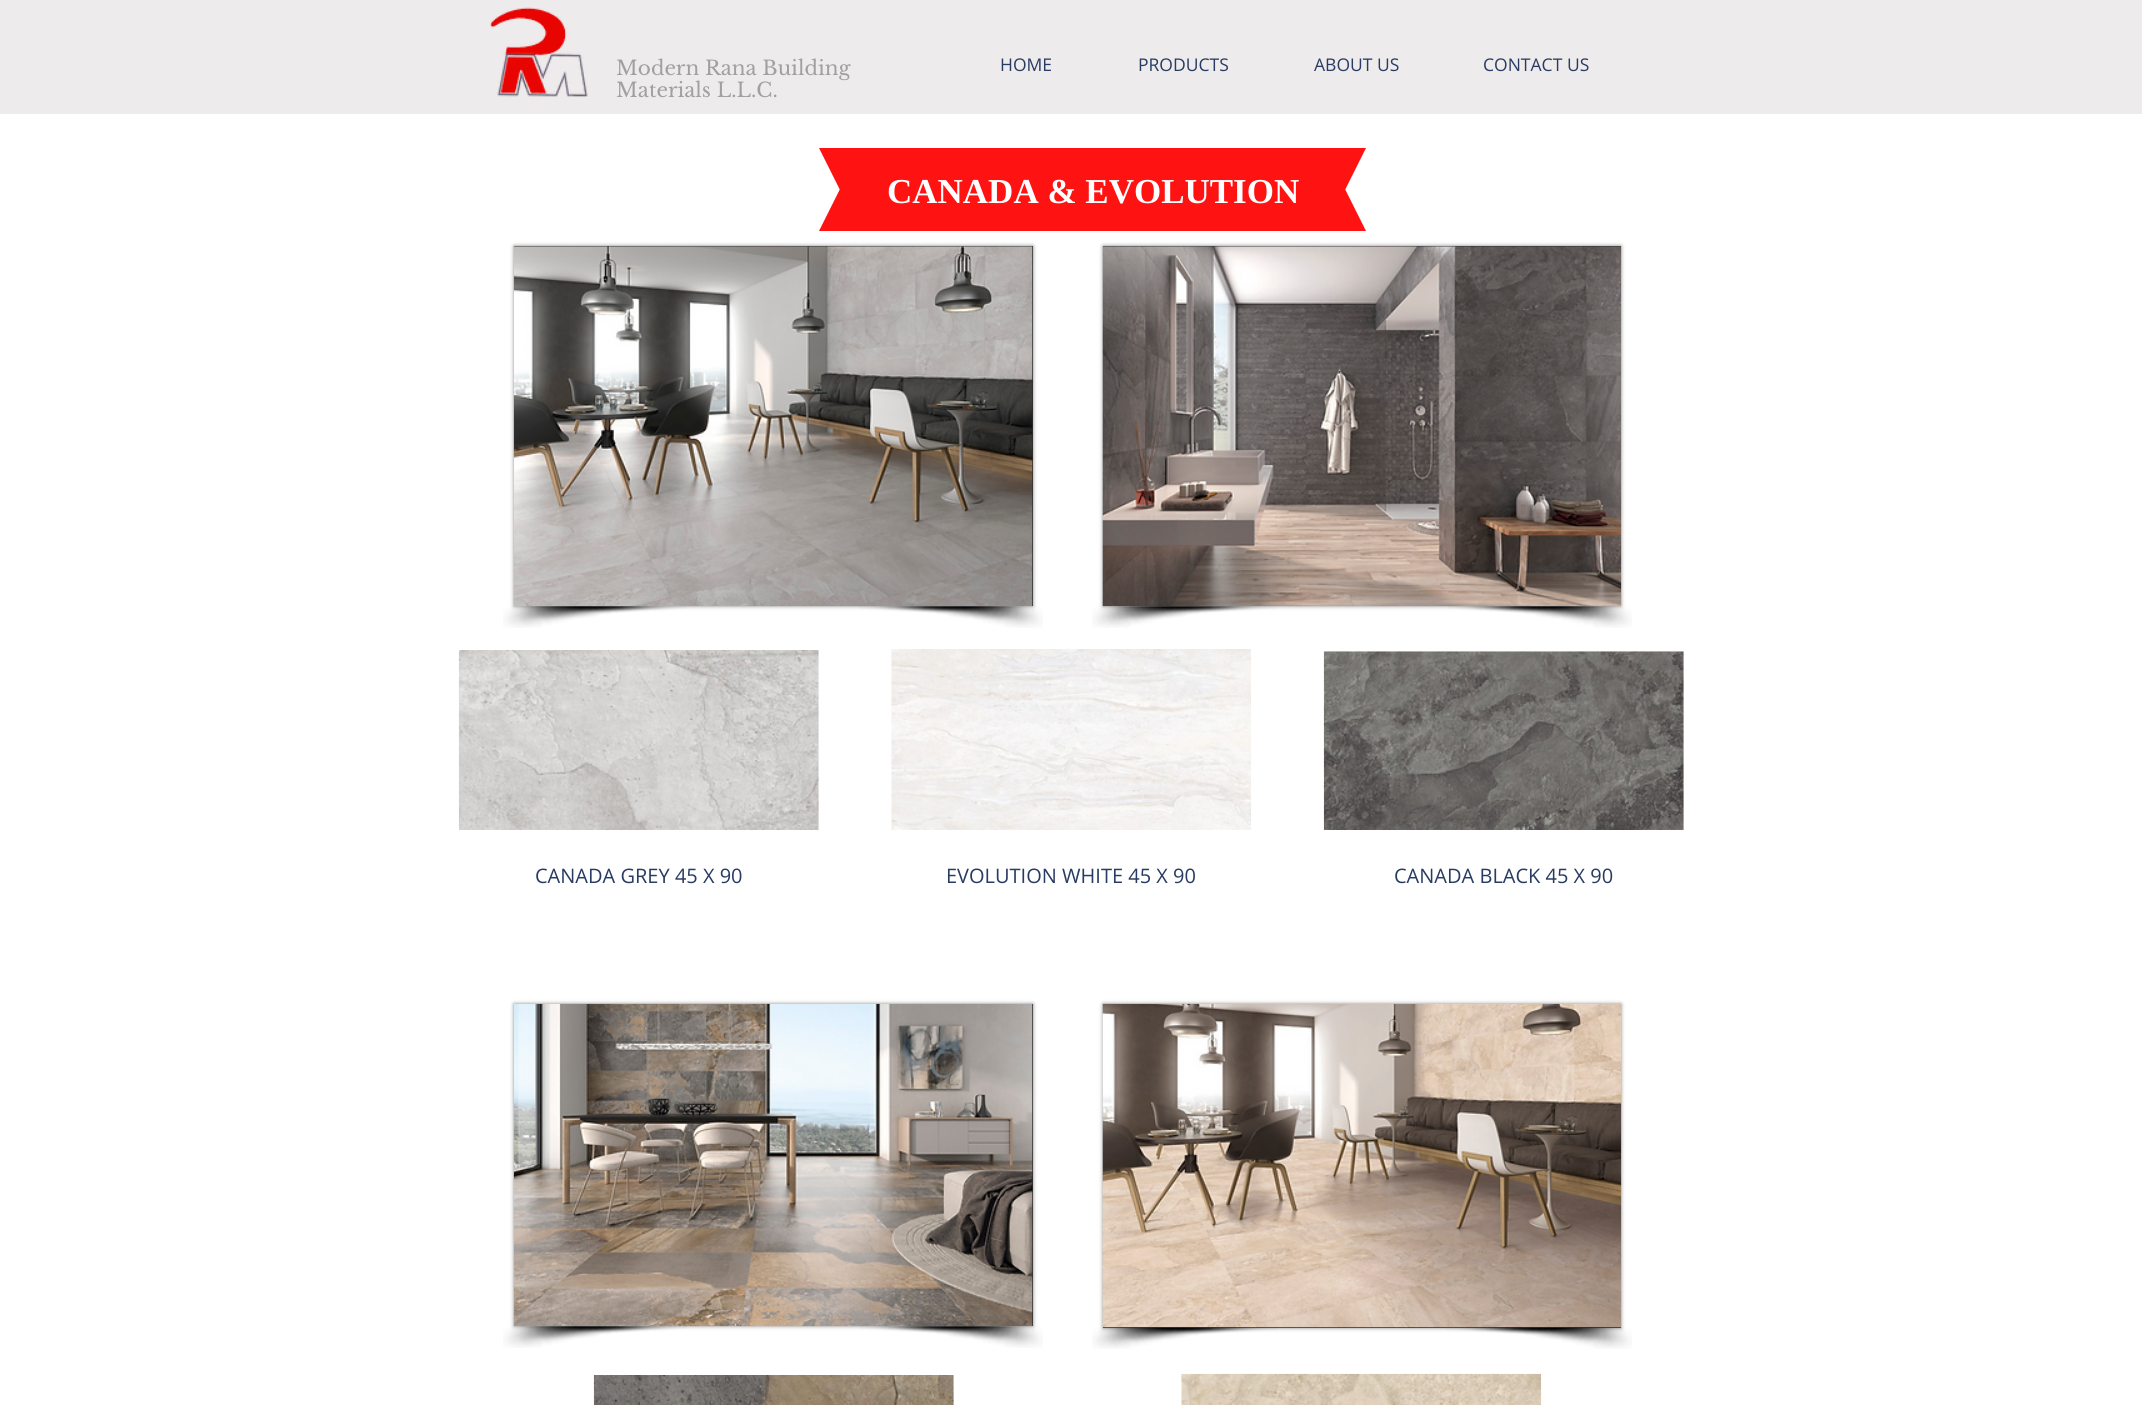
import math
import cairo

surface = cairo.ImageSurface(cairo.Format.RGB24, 2142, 1405)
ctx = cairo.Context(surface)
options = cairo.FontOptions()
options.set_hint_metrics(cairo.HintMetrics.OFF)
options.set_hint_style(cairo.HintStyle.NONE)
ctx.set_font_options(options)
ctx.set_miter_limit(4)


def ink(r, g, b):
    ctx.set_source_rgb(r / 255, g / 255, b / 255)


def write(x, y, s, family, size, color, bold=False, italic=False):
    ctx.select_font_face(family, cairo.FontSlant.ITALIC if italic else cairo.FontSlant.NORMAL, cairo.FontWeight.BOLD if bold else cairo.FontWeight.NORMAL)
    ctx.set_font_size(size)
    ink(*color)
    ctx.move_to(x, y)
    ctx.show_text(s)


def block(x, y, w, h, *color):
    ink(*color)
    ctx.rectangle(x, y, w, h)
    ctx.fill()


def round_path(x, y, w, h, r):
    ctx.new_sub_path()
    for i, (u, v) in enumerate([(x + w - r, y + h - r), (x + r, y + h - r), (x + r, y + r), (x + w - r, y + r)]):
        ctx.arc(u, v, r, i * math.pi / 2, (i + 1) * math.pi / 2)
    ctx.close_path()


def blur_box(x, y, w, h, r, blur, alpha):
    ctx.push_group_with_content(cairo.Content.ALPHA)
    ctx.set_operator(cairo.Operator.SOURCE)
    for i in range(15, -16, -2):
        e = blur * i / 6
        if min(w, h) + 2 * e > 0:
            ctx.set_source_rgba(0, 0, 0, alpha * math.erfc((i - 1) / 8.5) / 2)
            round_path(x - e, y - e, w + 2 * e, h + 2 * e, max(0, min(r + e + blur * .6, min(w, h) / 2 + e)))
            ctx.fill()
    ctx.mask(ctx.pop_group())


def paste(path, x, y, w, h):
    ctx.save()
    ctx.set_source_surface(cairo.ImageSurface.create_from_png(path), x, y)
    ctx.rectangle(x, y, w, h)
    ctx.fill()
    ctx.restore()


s1 = dict(family="Libre Baskerville", size=20, color=(160, 160, 159))
s2 = dict(family="Open Sans", size=17.5, color=(40, 59, 98))
s3 = dict(family="Liberation Serif", size=35, color=(255, 255, 255), bold=True)
s4 = dict(family="Open Sans", size=20, color=(40, 59, 98))

ink(255, 255, 255)
ctx.paint()
block(0, 0, 2142, 114, 237, 235, 235)
paste("pic1.png", 490, 7, 98, 90)
write(616, 75, "Modern Rana Building", **s1)
write(616, 97, "Materials L.L.C.", **s1)
write(1000, 71, "HOME", **s2)
write(1138, 71, "PRODUCTS", **s2)
write(1314, 71, "ABOUT US", **s2)
write(1483, 71, "CONTACT US", **s2)
ctx.save()
ctx.rectangle(819, 148, 275, 42)
ctx.clip()
ink(255, 18, 18)
ctx.new_path()
ctx.move_to(819, 148)
ctx.line_to(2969, 148)
ctx.line_to(1719, 1398)
ctx.line_to(1444, 1398)
ctx.close_path()
ctx.fill()
ctx.restore()
ctx.save()
ctx.rectangle(1093, 148, 273, 42)
ctx.clip()
ink(255, 18, 18)
ctx.new_path()
ctx.move_to(-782, 148)
ctx.line_to(1366, 148)
ctx.line_to(741, 1398)
ctx.line_to(468, 1398)
ctx.close_path()
ctx.fill()
ctx.restore()
ctx.save()
ctx.rectangle(819, 189, 275, 42)
ctx.clip()
ink(255, 18, 18)
ctx.new_path()
ctx.move_to(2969, 231)
ctx.line_to(819, 231)
ctx.line_to(1444, -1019)
ctx.line_to(1719, -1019)
ctx.close_path()
ctx.fill()
ctx.restore()
ctx.save()
ctx.rectangle(1093, 189, 273, 42)
ctx.clip()
ink(255, 18, 18)
ctx.new_path()
ctx.move_to(1366, 231)
ctx.line_to(-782, 231)
ctx.line_to(468, -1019)
ctx.line_to(741, -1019)
ctx.close_path()
ctx.fill()
ctx.restore()
write(887, 203, "CANADA & EVOLUTION", **s3)
ink(0, 0, 0)
blur_box(514, 246, 519, 360, 0, 2, 0.5)
block(514, 246, 519, 360, 47, 46, 46)
paste("pic2.png", 513, 246, 520, 361)
paste("pic3.png", 503, 606, 184, 22)
paste("pic4.png", 859, 606, 184, 22)
ink(0, 0, 0)
blur_box(1103, 246, 518, 360, 0, 2, 0.5)
block(1103, 246, 518, 1, 47, 46, 46)
paste("pic5.png", 1102, 246, 520, 361)
paste("pic6.png", 1092, 606, 184, 22)
paste("pic7.png", 1448, 606, 184, 22)
paste("pic8.png", 458, 650, 361, 180)
paste("pic9.png", 891, 649, 360, 181)
paste("pic10.png", 1323, 651, 361, 179)
write(535, 883, "CANADA GREY 45 X 90", **s4)
write(946, 883, "EVOLUTION WHITE 45 X 90", **s4)
write(1394, 883, "CANADA BLACK 45 X 90", **s4)
ink(0, 0, 0)
blur_box(514, 1004, 519, 322, 0, 2, 0.5)
block(1032, 1004, 1, 322, 47, 46, 46)
paste("pic11.png", 513, 1003, 520, 324)
paste("pic12.png", 503, 1326, 184, 22)
paste("pic13.png", 859, 1326, 184, 22)
ink(0, 0, 0)
blur_box(1103, 1004, 518, 324, 0, 2, 0.5)
block(1103, 1327, 518, 1, 47, 46, 46)
paste("pic14.png", 1102, 1003, 520, 325)
paste("pic15.png", 1092, 1327, 185, 22)
paste("pic16.png", 1446, 1327, 186, 22)
paste("pic17.png", 593, 1375, 361, 30)
paste("pic18.png", 1181, 1373, 361, 32)
surface.write_to_png("screenshot.png")
